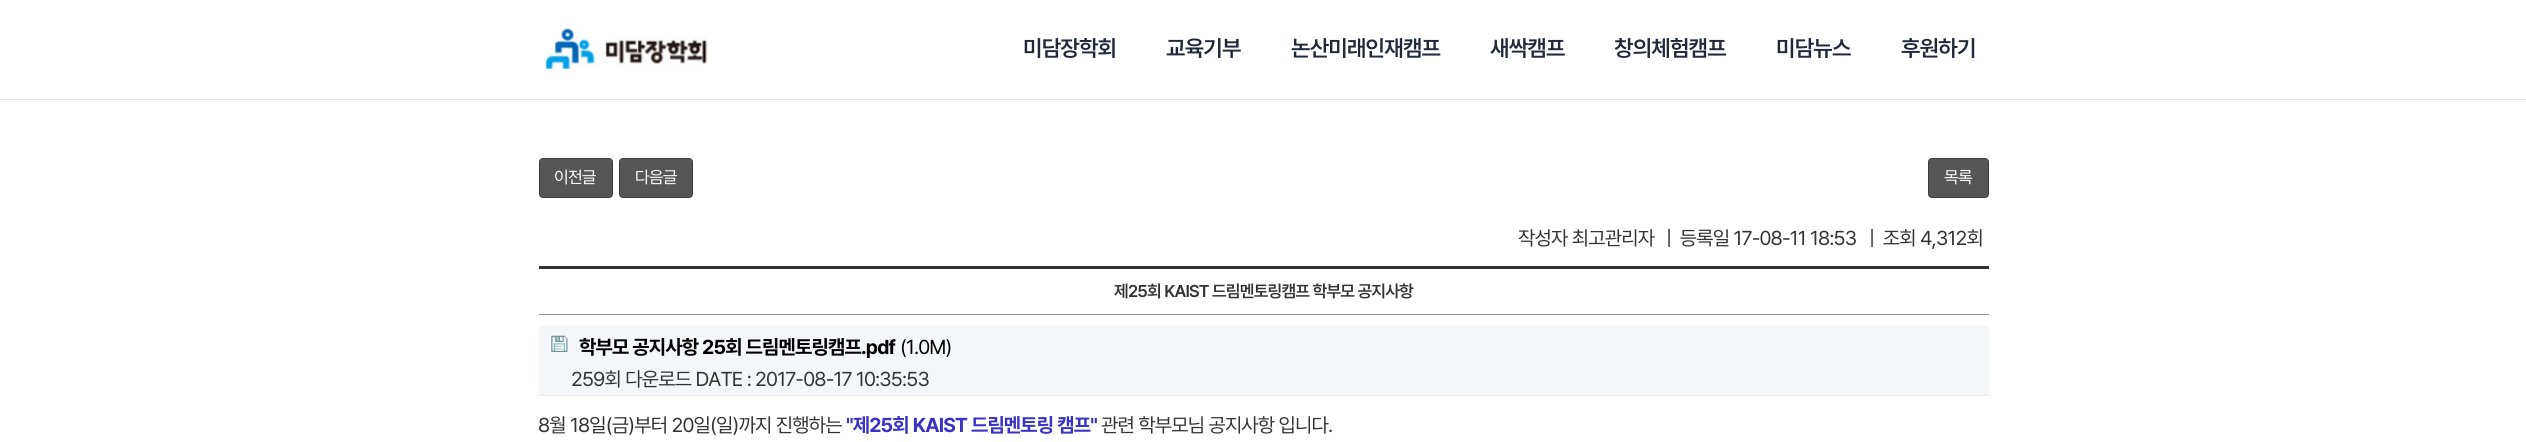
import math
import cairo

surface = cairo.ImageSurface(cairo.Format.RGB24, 2526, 442)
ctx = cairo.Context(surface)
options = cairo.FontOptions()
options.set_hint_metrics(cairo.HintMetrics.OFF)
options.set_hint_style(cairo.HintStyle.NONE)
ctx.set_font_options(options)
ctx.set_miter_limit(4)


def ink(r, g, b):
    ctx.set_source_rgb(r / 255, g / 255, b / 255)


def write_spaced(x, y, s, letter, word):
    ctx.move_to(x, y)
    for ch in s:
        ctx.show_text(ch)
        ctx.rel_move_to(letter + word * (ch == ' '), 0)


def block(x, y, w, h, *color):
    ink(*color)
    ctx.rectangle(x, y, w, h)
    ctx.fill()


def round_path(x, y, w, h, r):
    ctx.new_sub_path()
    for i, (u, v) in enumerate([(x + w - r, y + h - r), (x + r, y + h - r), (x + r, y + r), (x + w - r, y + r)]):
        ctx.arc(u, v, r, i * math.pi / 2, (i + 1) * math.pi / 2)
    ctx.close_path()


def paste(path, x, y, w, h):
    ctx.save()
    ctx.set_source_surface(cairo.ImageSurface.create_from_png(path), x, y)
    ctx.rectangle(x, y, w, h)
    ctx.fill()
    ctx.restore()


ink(255, 255, 255)
ctx.paint()
block(0, 99, 2526, 1, 228, 228, 228)
paste("pic1.png", 545, 27, 163, 44)
ctx.select_font_face("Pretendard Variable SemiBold")
ctx.set_font_size(22.5)
ink(32, 40, 59)
write_spaced(1023, 56, "미담장학회", -0.8, 0)
write_spaced(1166, 56, "교육기부", -0.8, 0)
write_spaced(1291, 56, "논산미래인재캠프", -0.8, 0)
write_spaced(1490, 56, "새싹캠프", -0.8, 0)
write_spaced(1614, 56, "창의체험캠프", -0.8, 0)
write_spaced(1776, 56, "미담뉴스", -0.8, 0)
write_spaced(1901, 56, "후원하기", -0.8, 0)
ink(86, 86, 86)
round_path(539.5, 158.5, 73, 39, 3.5)
ctx.fill_preserve()
ink(61, 61, 61)
ctx.set_line_width(1)
ctx.stroke()
ctx.select_font_face("Pretendard Variable")
ctx.set_font_size(17)
ink(255, 255, 255)
write_spaced(554, 183, "이전글", -0.8, 0)
ink(86, 86, 86)
round_path(619.5, 158.5, 73, 39, 3.5)
ctx.fill_preserve()
ink(61, 61, 61)
ctx.stroke()
ink(255, 255, 255)
write_spaced(635, 183, "다음글", -0.8, 0)
ink(86, 86, 86)
round_path(1928.5, 158.5, 60, 39, 3.5)
ctx.fill_preserve()
ink(61, 61, 61)
ctx.stroke()
ink(255, 255, 255)
write_spaced(1944, 183, "목록", -0.8, 0)
ctx.set_font_size(20)
ink(51, 51, 51)
write_spaced(1518, 245, "작성자 최고관리자", -0.8, 0)
write_spaced(1666, 245, "|  등록일 17-08-11 18:53", -0.8, 0)
write_spaced(1869, 245, "|  조회 4,312회", -0.8, 0)
block(539, 266, 1450, 3, 51, 51, 51)
block(539, 314, 1450, 1, 151, 151, 151)
ctx.select_font_face("Pretendard Variable SemiBold")
ctx.set_font_size(17)
ink(51, 51, 51)
write_spaced(1114, 297, "제25회 KAIST 드림멘토링캠프 학부모 공지사항", -0.8, 0)
block(539, 326, 1450, 69, 245, 246, 250)
block(539, 395, 1450, 1, 238, 238, 238)
paste("pic2.png", 551, 335, 17, 17)
ctx.select_font_face("Pretendard Variable", cairo.FontSlant.NORMAL, cairo.FontWeight.BOLD)
ctx.set_font_size(20)
ink(0, 0, 0)
write_spaced(579, 354, "학부모 공지사항 25회 드림멘토링캠프.pdf", -0.8, 0)
ctx.select_font_face("Pretendard Variable")
write_spaced(900, 354, "(1.0M)", -0.8, 0)
ink(51, 51, 51)
write_spaced(571, 386, "259회 다운로드 DATE : 2017-08-17 10:35:53", -0.8, 0)
write_spaced(538, 432, "8월 18일(금)부터 20일(일)까지 진행하는", -0.8, 0)
ctx.select_font_face("Pretendard Variable", cairo.FontSlant.NORMAL, cairo.FontWeight.BOLD)
ink(58, 50, 195)
write_spaced(846, 432, "\"제25회 KAIST 드림멘토링 캠프\"", -0.8, 0)
ctx.select_font_face("Pretendard Variable")
ink(51, 51, 51)
write_spaced(1101, 432, "관련 학부모님 공지사항 입니다.", -0.8, 0)
surface.write_to_png("screenshot.png")
